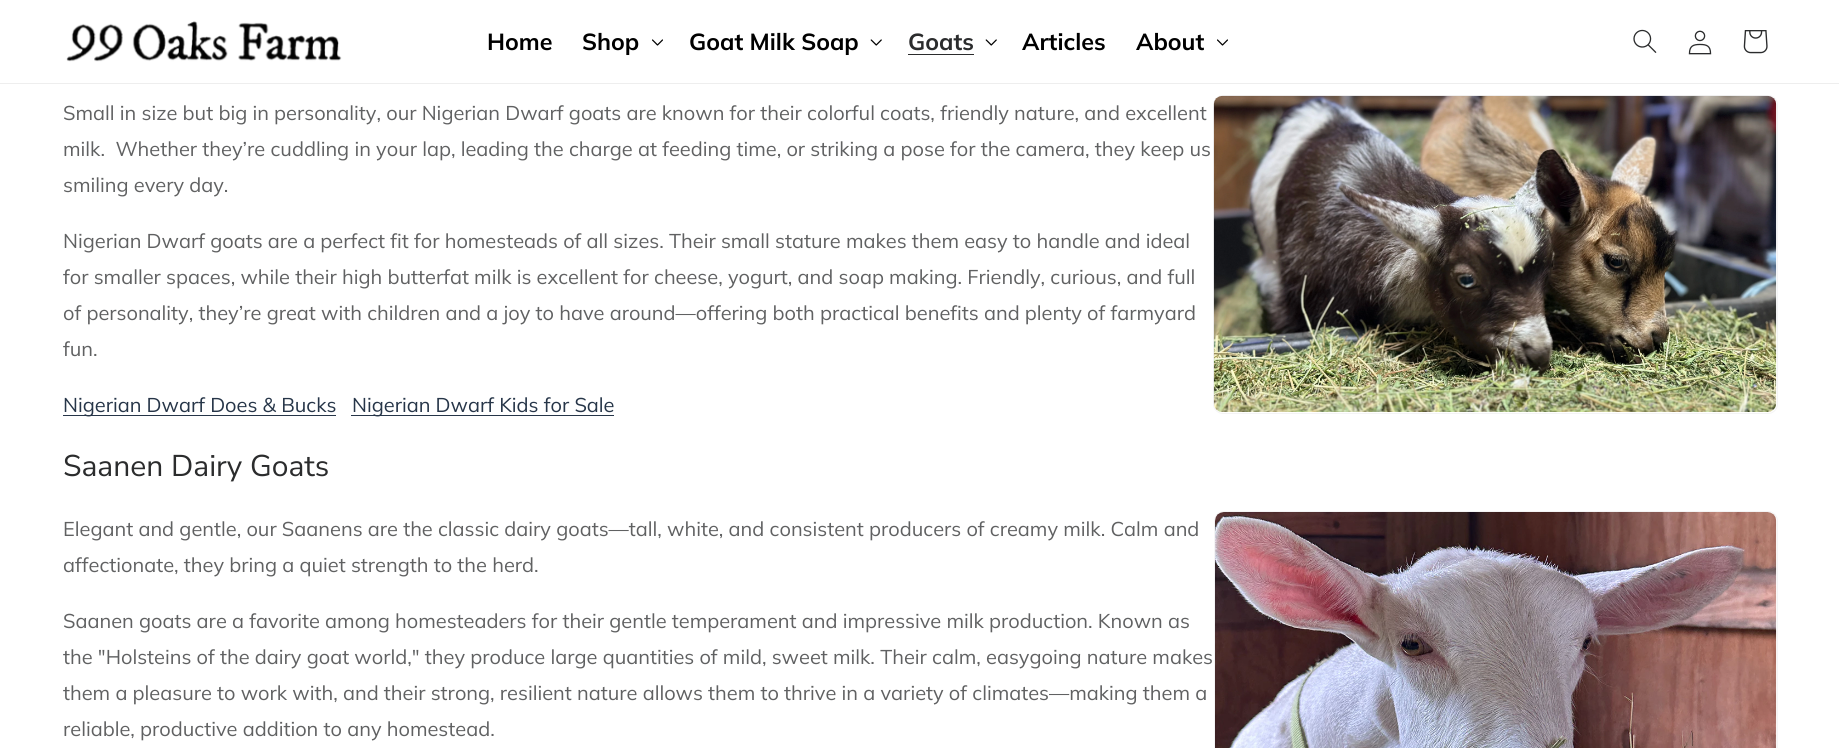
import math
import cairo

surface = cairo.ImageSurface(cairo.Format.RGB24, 1839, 748)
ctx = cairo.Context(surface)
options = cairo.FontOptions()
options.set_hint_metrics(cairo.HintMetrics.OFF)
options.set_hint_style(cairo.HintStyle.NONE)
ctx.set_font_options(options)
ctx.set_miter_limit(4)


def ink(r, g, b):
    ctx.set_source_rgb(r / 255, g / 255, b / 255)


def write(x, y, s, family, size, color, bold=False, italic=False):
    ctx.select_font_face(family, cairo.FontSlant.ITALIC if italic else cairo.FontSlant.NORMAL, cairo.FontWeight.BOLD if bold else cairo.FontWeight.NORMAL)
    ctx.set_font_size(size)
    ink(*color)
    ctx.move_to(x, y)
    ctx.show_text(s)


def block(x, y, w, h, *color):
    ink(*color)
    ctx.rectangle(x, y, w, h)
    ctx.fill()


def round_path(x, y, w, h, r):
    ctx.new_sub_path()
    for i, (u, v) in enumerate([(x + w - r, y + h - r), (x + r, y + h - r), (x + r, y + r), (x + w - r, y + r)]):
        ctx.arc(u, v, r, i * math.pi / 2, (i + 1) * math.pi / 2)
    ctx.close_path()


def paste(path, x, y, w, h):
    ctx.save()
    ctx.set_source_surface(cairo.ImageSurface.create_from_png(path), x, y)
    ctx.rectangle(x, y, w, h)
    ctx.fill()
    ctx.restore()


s1 = dict(family="Muli", size=23.25, color=(0, 0, 0), bold=True)
s2 = dict(family="Muli", size=23.25, color=(43, 44, 45), bold=True)
s3 = dict(family="Muli", size=20, color=(96, 97, 98))
s4 = dict(family="Muli", size=20, color=(38, 53, 72))
s5 = dict(family="Nunito Sans", size=30, color=(43, 44, 45))

ink(255, 255, 255)
ctx.paint()
block(0, 83, 1839, 1, 238, 238, 238)
paste("pic1.png", 66, 21, 276, 41)
write(487, 50, "Home", **s1)
write(582, 50, "Shop", **s1)
paste("pic2.png", 652, 39, 11, 7)
write(689, 50, "Goat Milk Soap", **s1)
paste("pic3.png", 870, 39, 12, 7)
write(908, 50, "Goats", **s2)
block(908, 54, 66, 1, 43, 44, 45)
paste("pic3.png", 985, 39, 12, 7)
write(1022, 50, "Articles", **s1)
write(1136, 50, "About", **s1)
paste("pic2.png", 1217, 39, 11, 7)
paste("pic4.png", 1633, 29, 24, 24)
paste("pic5.png", 1688, 30, 24, 25)
paste("pic6.png", 1743, 30, 25, 24)
write(63, 120, "Small in size but big in personality, our Nigerian Dwarf goats are known for their colorful coats, friendly nature, and excellent", **s3)
write(63, 156, "milk.  Whether they’re cuddling in your lap, leading the charge at feeding time, or striking a pose for the camera, they keep us", **s3)
write(63, 192, "smiling every day.", **s3)
round_path(1213.5, 95.5, 564, 318, 9.5)
ink(244, 244, 245)
ctx.set_line_width(1)
ctx.stroke()
paste("pic7.png", 1213, 95, 564, 317)
write(63, 248, "Nigerian Dwarf goats are a perfect fit for homesteads of all sizes. Their small stature makes them easy to handle and ideal", **s3)
write(63, 284, "for smaller spaces, while their high butterfat milk is excellent for cheese, yogurt, and soap making. Friendly, curious, and full", **s3)
write(63, 320, "of personality, they’re great with children and a joy to have around—offering both practical benefits and plenty of farmyard", **s3)
write(63, 356, "fun.", **s3)
block(63, 415, 273, 1, 38, 53, 72)
write(63, 412, "Nigerian Dwarf Does & Bucks", **s4)
block(351, 415, 263, 1, 38, 53, 72)
write(352, 412, "Nigerian Dwarf Kids for Sale", **s4)
write(63, 476, "Saanen Dairy Goats", **s5)
write(63, 536, "Elegant and gentle, our Saanens are the classic dairy goats—tall, white, and consistent producers of creamy milk. Calm and", **s3)
round_path(1214.5, 511.5, 563, 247, 9.5)
ink(244, 244, 245)
ctx.stroke()
paste("pic8.png", 1215, 512, 562, 236)
write(63, 572, "affectionate, they bring a quiet strength to the herd.", **s3)
write(63, 628, "Saanen goats are a favorite among homesteaders for their gentle temperament and impressive milk production. Known as", **s3)
write(63, 664, "the \"Holsteins of the dairy goat world,\" they produce large quantities of mild, sweet milk. Their calm, easygoing nature makes", **s3)
write(63, 700, "them a pleasure to work with, and their strong, resilient nature allows them to thrive in a variety of climates—making them a", **s3)
write(63, 736, "reliable, productive addition to any homestead.", **s3)
surface.write_to_png("screenshot.png")
